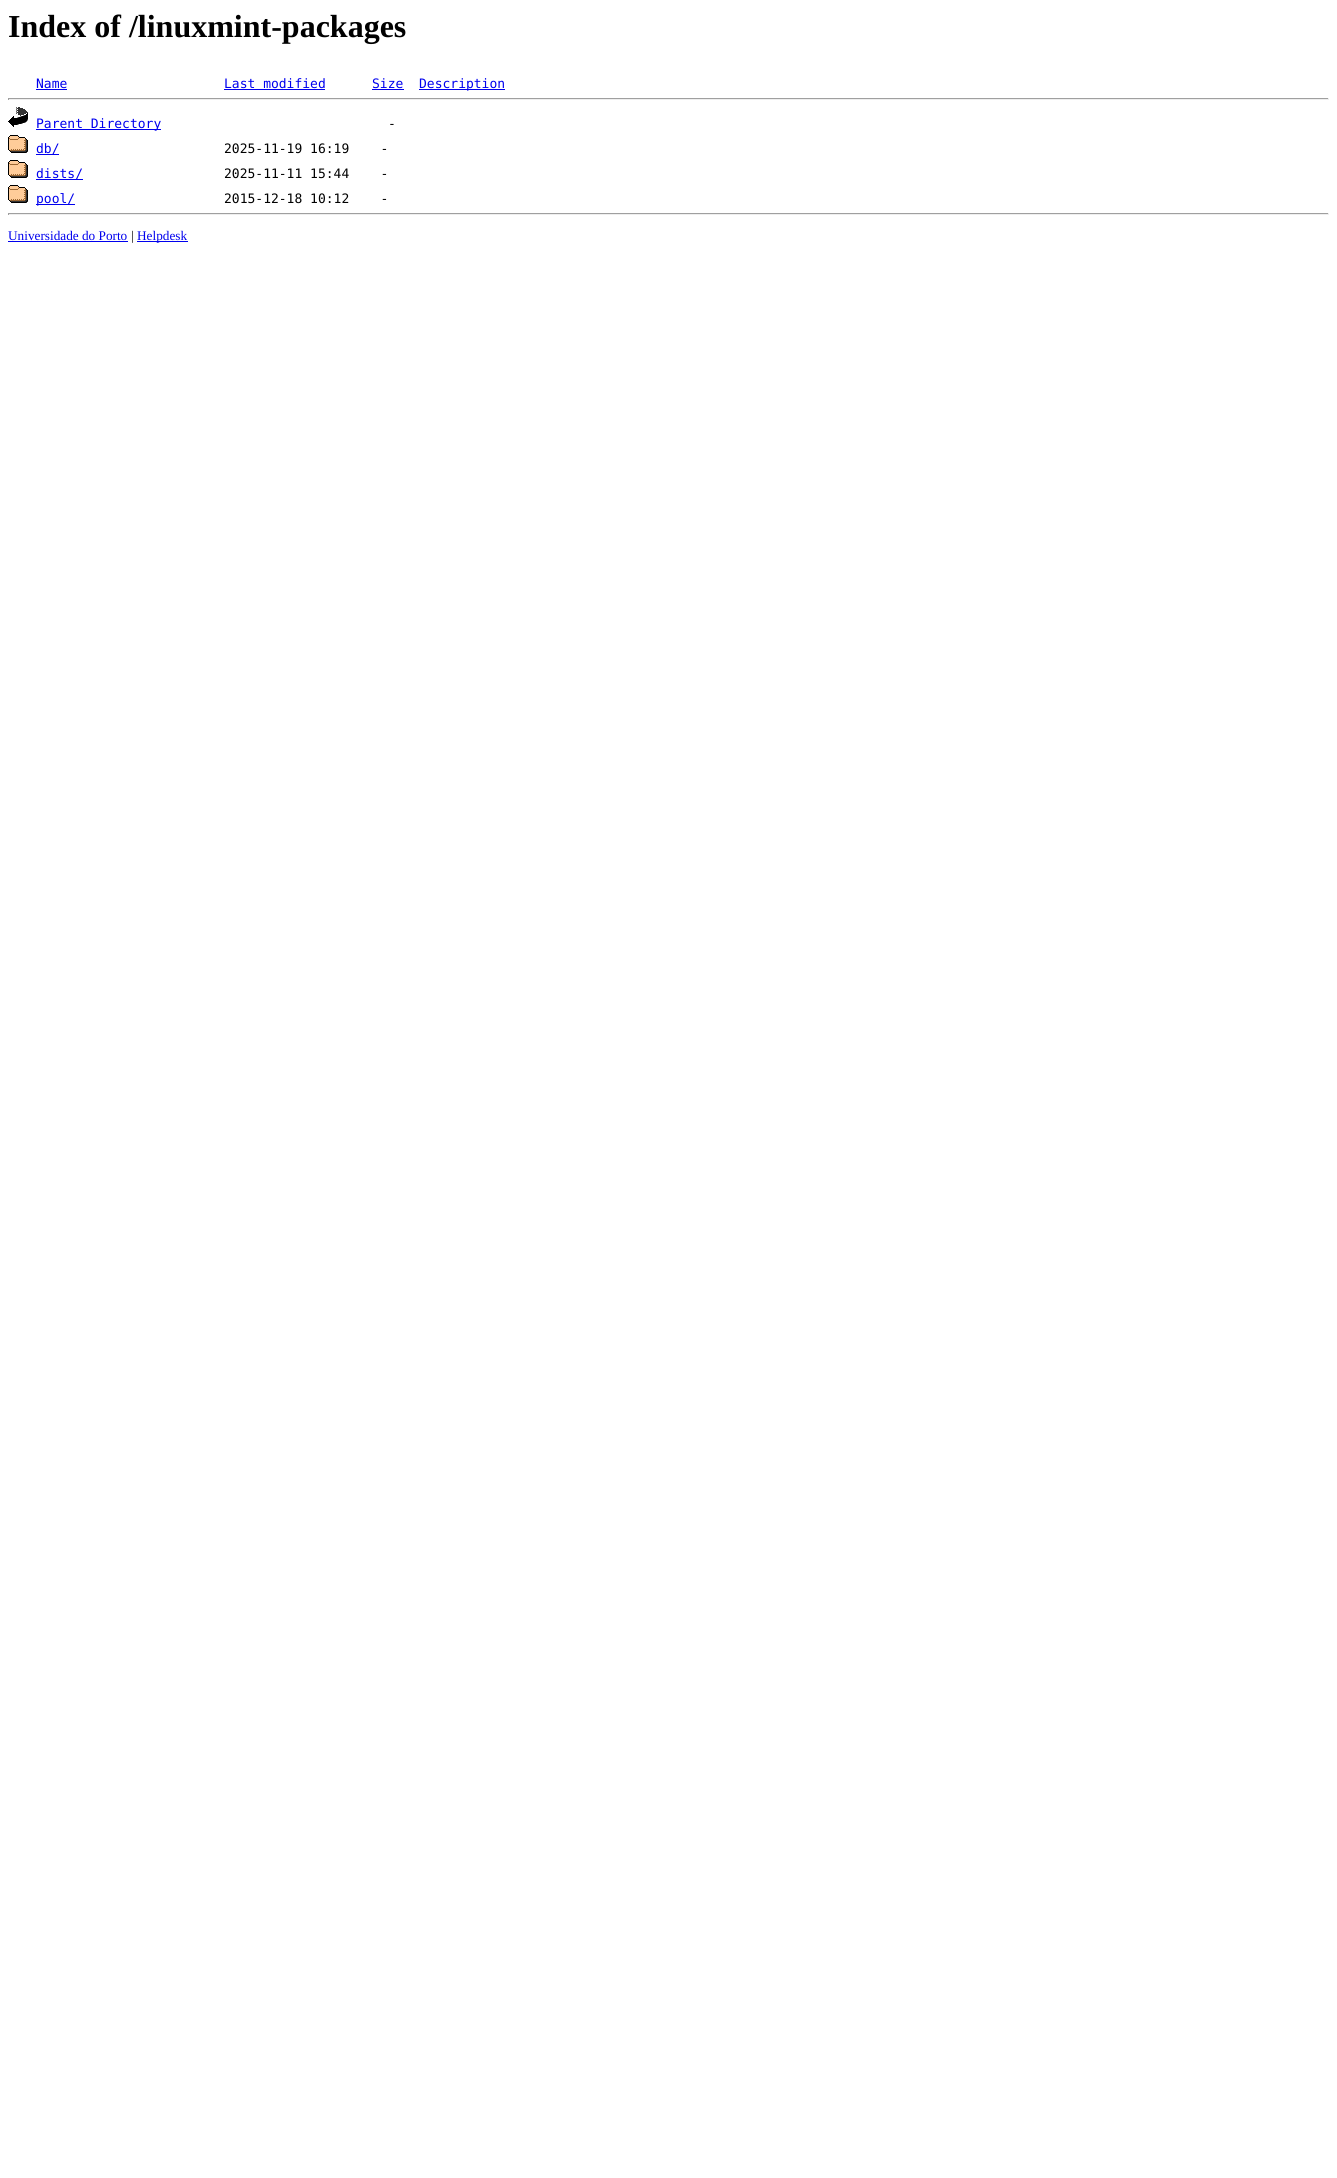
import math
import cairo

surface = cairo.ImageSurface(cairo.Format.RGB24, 1337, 2178)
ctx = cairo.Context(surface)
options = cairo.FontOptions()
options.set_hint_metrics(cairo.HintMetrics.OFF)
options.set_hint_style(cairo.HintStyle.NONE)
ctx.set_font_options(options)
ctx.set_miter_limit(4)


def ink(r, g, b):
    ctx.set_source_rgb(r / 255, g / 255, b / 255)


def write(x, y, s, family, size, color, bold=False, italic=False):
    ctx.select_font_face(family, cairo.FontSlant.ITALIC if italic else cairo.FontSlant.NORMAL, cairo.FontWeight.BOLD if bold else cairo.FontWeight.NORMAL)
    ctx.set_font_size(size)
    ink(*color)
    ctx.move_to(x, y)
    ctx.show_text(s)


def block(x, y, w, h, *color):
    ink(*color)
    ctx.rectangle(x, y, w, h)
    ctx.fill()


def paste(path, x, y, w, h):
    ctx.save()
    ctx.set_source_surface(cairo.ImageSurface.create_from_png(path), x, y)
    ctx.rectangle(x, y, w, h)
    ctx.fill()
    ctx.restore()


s1 = dict(family="Liberation Serif", size=32, color=(0, 0, 0), bold=True)
s2 = dict(family="DejaVu Sans Mono", size=13, color=(0, 0, 238))
s3 = dict(family="DejaVu Sans Mono", size=13, color=(0, 0, 0))
s4 = dict(family="Liberation Serif", size=13.25, color=(0, 0, 238))
s5 = dict(family="Liberation Serif", size=13.25, color=(0, 0, 0))

ink(255, 255, 255)
ctx.paint()
write(8, 37, "Index of /linuxmint-packages", **s1)
write(36, 88, "Name", **s2)
block(36, 89, 31, 1, 0, 0, 238)
write(224, 88, "Last modified", **s2)
block(224, 89, 101, 1, 0, 0, 238)
write(372, 88, "Size", **s2)
block(372, 89, 32, 1, 0, 0, 238)
block(419, 89, 86, 1, 0, 0, 238)
write(419, 88, "Description", **s2)
block(8, 98, 1321, 1, 159, 159, 159)
block(1328, 98, 1, 2, 238, 238, 238)
block(8, 99, 1321, 1, 238, 238, 238)
block(8, 98, 1, 2, 159, 159, 159)
paste("pic1.png", 8, 107, 20, 20)
block(36, 129, 125, 1, 0, 0, 238)
write(36, 128, "Parent Directory", **s2)
write(388, 128, "-", **s3)
paste("pic2.png", 8, 135, 20, 18)
block(36, 154, 23, 1, 0, 0, 238)
write(36, 153, "db/", **s2)
write(224, 153, "2025-11-19 16:19    -", **s3)
paste("pic2.png", 8, 160, 20, 18)
block(36, 179, 47, 1, 0, 0, 238)
write(36, 178, "dists/", **s2)
write(224, 178, "2025-11-11 15:44    -", **s3)
paste("pic2.png", 8, 185, 20, 18)
block(36, 204, 39, 1, 0, 0, 238)
write(36, 203, "pool/", **s2)
write(224, 203, "2015-12-18 10:12    -", **s3)
block(8, 213, 1321, 1, 159, 159, 159)
block(1328, 213, 1, 2, 238, 238, 238)
block(8, 214, 1321, 1, 238, 238, 238)
block(8, 213, 1, 2, 159, 159, 159)
write(8, 240, "Universidade do Porto", **s4)
block(8, 241, 120, 1, 0, 0, 238)
write(131, 240, "|", **s5)
block(137, 241, 51, 1, 0, 0, 238)
write(137, 240, "Helpdesk", **s4)
surface.write_to_png("screenshot.png")
